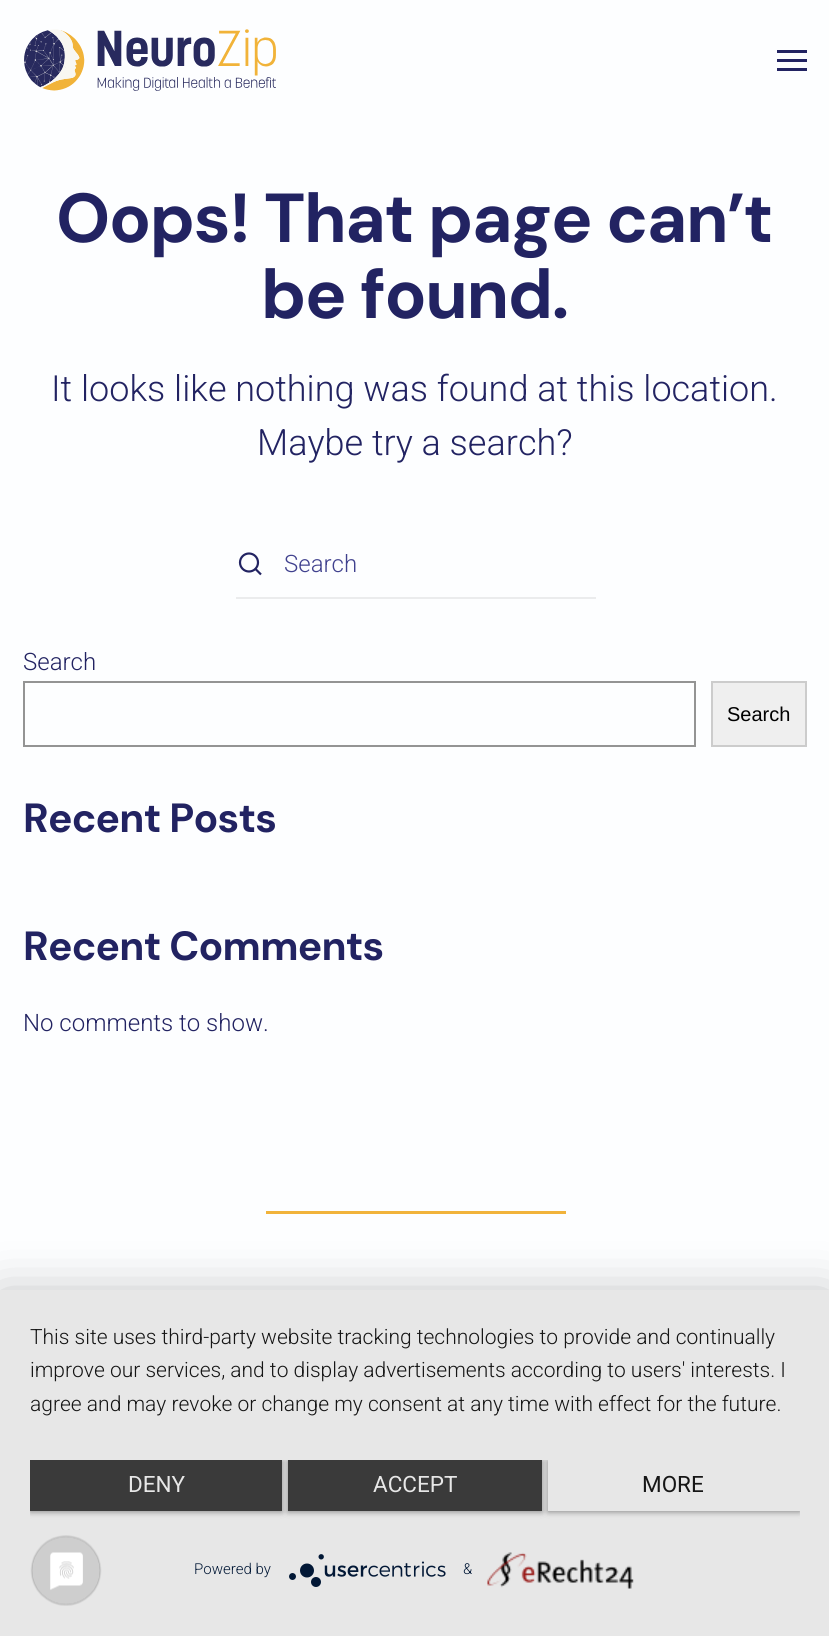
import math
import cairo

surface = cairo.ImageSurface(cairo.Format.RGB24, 829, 1636)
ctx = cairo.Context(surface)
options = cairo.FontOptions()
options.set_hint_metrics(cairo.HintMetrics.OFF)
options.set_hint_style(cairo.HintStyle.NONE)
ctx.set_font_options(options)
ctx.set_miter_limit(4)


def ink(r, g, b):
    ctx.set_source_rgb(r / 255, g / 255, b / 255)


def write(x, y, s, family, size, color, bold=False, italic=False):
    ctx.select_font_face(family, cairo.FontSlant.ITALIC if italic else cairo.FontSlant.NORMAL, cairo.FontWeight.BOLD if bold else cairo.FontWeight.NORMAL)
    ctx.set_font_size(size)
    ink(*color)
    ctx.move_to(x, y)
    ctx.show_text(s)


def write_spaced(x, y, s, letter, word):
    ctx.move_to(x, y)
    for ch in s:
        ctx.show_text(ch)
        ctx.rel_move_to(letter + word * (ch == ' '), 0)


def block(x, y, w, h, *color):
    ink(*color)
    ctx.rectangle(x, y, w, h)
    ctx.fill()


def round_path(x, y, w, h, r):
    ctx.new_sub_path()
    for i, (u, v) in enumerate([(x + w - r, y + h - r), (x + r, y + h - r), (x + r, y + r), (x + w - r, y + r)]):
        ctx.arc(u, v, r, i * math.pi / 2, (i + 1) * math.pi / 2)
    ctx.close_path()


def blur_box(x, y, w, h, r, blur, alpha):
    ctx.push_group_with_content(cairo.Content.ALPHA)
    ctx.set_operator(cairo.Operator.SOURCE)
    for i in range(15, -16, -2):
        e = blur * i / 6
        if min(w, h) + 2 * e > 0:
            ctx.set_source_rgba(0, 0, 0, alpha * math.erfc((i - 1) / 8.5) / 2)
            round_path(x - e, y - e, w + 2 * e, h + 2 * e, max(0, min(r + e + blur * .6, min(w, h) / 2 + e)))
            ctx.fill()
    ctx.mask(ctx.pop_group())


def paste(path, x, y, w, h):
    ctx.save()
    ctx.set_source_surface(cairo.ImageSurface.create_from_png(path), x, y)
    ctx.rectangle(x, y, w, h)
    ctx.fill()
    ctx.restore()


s1 = dict(family="Roboto Light", size=36, color=(34, 35, 98))
s2 = dict(family="Roboto Light", size=24, color=(64, 65, 142))
s3 = dict(family="Roboto Light", size=24, color=(34, 35, 98))
s4 = dict(family="Liberation Sans", size=20, color=(0, 0, 0))
s5 = dict(family="Roboto Light", size=21, color=(22, 22, 22))
s6 = dict(family="Roboto", size=22.5, color=(231, 231, 231))
s7 = dict(family="Roboto", size=22.5, color=(22, 22, 22))
s8 = dict(family="Roboto Light", size=15, color=(2, 24, 54))

ink(253, 254, 255)
ctx.paint()
paste("pic1.png", 24, 29, 252, 62)
block(777, 50, 30, 3, 34, 35, 98)
block(777, 59, 30, 3, 34, 35, 98)
block(777, 68, 30, 3, 34, 35, 98)
ctx.select_font_face("DM Sans", cairo.FontSlant.NORMAL, cairo.FontWeight.BOLD)
ctx.set_font_size(69.25)
write_spaced(56, 242, "Oops! That page can’t", -1.4, 0)
write_spaced(261, 318, "be found.", -1.4, 0)
write(51, 401, "It looks like nothing was found at this location.", **s1)
write(257, 455, "Maybe try a search?", **s1)
ctx.new_path()
ctx.arc(249, 562.5, 9, 0, 2 * math.pi)
ctx.set_line_width(2.2)
ctx.stroke()
ctx.new_path()
ctx.move_to(255, 568.5)
ctx.line_to(261, 574.5)
ctx.close_path()
ctx.stroke()
block(236, 597, 360, 2, 235, 236, 237)
write(284, 572, "Search", **s2)
write(23, 670, "Search", **s3)
ctx.rectangle(24, 682, 671, 64)
ink(148, 148, 148)
ctx.set_line_width(2)
ctx.stroke()
ink(239, 239, 239)
ctx.rectangle(712, 682, 94, 64)
ctx.fill_preserve()
ink(204, 204, 204)
ctx.stroke()
write(727, 721, "Search", **s4)
ctx.select_font_face("DM Sans", cairo.FontSlant.NORMAL, cairo.FontWeight.BOLD)
ctx.set_font_size(40.75)
ink(34, 35, 98)
write_spaced(23, 832, "Recent Posts", -0.8, 0)
write_spaced(23, 960, "Recent Comments", -0.8, 0)
write(23, 1031, "No comments to show.", **s3)
block(266, 1211, 300, 3, 241, 179, 59)
ink(0, 0, 0)
blur_box(0, 1299, 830, 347, 0, 27, 0.3)
block(0, 1290, 829, 346, 231, 231, 231)
write(30, 1344, "This site uses third-party website tracking technologies to provide and continually", **s5)
write(30, 1377, "improve our services, and to display advertisements according to users' interests. I", **s5)
write(30, 1411, "agree and may revoke or change my consent at any time with effect for the future.", **s5)
ctx.save()
ctx.rectangle(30, 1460, 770, 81)
ctx.clip()
ink(0, 0, 0)
blur_box(30, 1461, 252, 51, 0, 3, 0.4)
ctx.restore()
block(30, 1460, 252, 51, 58, 58, 58)
write(128, 1492, "DENY", **s6)
ctx.save()
ctx.rectangle(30, 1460, 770, 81)
ctx.clip()
ink(0, 0, 0)
blur_box(288, 1461, 254, 51, 0, 3, 0.4)
ctx.restore()
block(288, 1460, 254, 51, 58, 58, 58)
write(373, 1492, "ACCEPT", **s6)
ctx.save()
ctx.rectangle(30, 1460, 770, 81)
ctx.clip()
ink(0, 0, 0)
blur_box(548, 1461, 252, 51, 0, 3, 0.4)
ctx.restore()
block(548, 1460, 252, 51, 231, 231, 231)
write(642, 1492, "MORE", **s7)
write(194, 1574, "Powered by", **s8)
paste("pic2.png", 289, 1554, 157, 33)
write(463, 1574, "&", **s8)
paste("pic3.png", 487, 1552, 147, 37)
paste("pic4.png", 30, 1535, 72, 71)
surface.write_to_png("screenshot.png")
